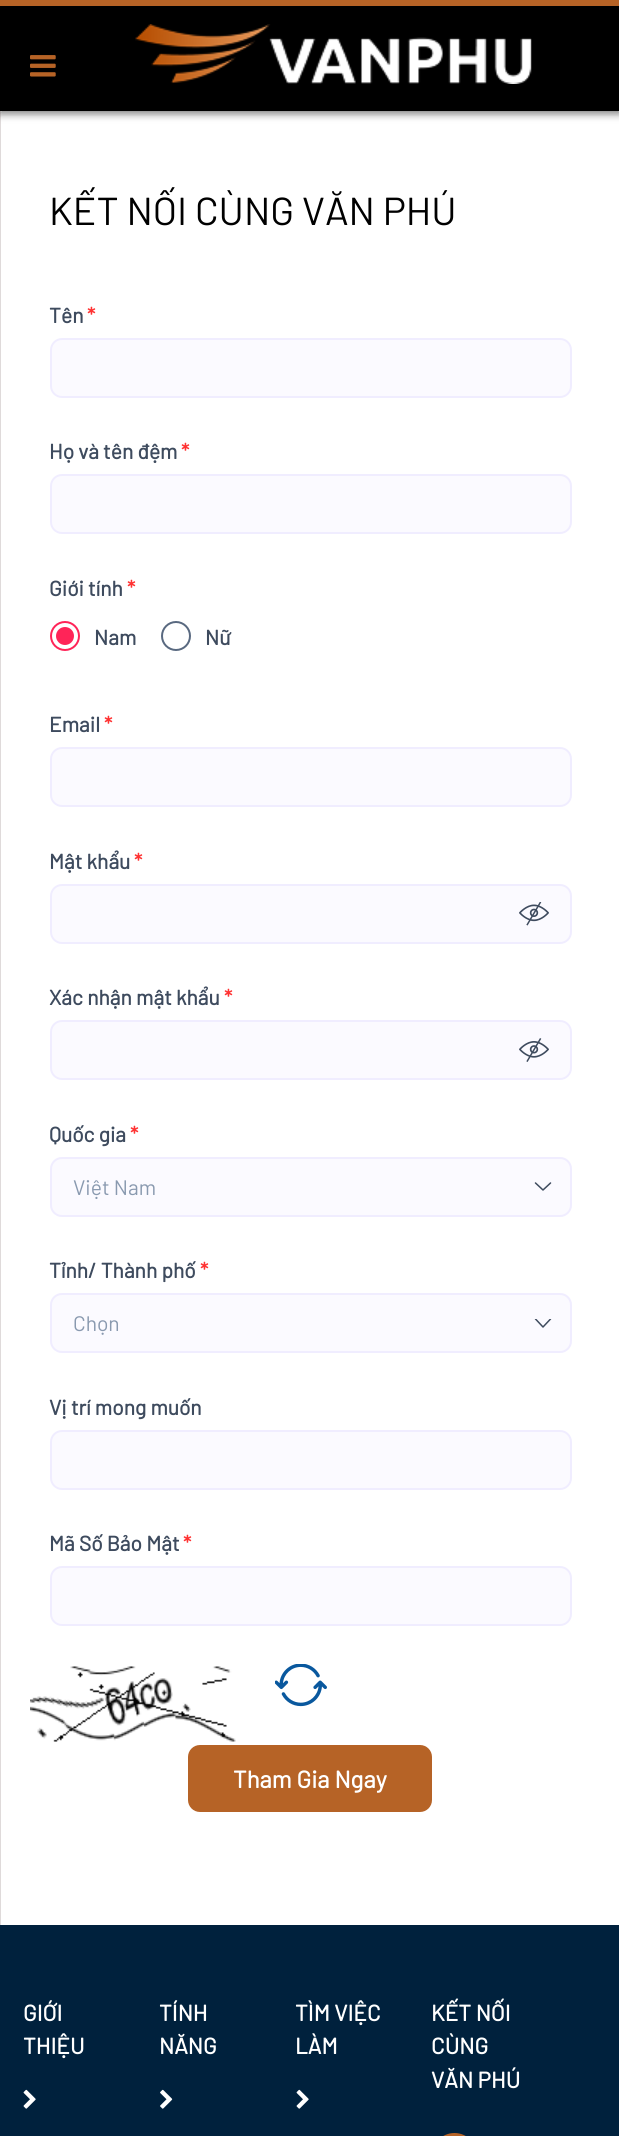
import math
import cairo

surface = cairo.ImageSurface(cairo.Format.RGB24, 619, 2136)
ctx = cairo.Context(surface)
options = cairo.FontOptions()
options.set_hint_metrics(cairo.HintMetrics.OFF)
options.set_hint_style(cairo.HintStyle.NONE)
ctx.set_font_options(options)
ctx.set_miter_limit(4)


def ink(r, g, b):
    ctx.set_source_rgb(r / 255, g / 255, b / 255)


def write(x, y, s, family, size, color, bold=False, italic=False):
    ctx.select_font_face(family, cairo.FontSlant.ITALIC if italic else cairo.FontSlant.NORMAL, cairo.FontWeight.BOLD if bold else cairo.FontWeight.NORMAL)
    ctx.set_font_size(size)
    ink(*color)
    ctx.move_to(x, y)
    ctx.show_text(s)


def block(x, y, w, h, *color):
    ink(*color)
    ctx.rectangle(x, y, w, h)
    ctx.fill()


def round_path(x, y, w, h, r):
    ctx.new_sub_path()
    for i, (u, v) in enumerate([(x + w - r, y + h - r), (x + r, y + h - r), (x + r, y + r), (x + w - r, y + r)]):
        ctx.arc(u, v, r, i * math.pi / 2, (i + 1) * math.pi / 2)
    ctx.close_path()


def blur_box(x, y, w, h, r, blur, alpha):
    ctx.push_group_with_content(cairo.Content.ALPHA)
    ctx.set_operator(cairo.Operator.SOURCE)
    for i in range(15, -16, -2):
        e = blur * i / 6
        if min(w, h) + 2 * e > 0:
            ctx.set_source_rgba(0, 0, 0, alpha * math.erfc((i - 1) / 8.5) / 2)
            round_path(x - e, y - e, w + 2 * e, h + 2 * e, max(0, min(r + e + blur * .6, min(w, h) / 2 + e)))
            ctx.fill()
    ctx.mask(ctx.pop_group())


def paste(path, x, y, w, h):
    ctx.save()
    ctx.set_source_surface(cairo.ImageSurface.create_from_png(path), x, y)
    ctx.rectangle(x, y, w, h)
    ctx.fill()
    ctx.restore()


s1 = dict(family="Barlow", size=39, color=(0, 0, 0))
s2 = dict(family="Barlow", size=21, color=(62, 75, 94), bold=True)
s3 = dict(family="Barlow", size=21, color=(255, 51, 51), bold=True)
s4 = dict(family="Barlow", size=21, color=(137, 153, 175))
s5 = dict(family="Barlow", size=24, color=(255, 255, 255), bold=True)
s6 = dict(family="Barlow", size=22.5, color=(255, 255, 255), bold=True)

ink(255, 255, 255)
ctx.paint()
block(0, 111, 1, 1814, 223, 218, 218)
ink(0, 0, 0)
blur_box(0, 3, 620, 111, 0, 4, 0.5)
block(0, 6, 619, 105, 0, 0, 0)
block(0, 0, 619, 6, 182, 99, 38)
paste("pic1.png", 30, 55, 26, 22)
paste("pic2.png", 135, 24, 397, 60)
write(49, 225, "KẾT NỐI CÙNG VĂN PHÚ", **s1)
write(49, 323, "Tên", **s2)
write(87, 323, "*", **s3)
ink(251, 250, 255)
round_path(51, 339, 520, 58, 11)
ctx.fill_preserve()
ink(240, 237, 255)
ctx.stroke()
write(49, 459, "Họ và tên đệm", **s2)
write(181, 459, "*", **s3)
ink(251, 250, 255)
round_path(51, 475, 520, 58, 11)
ctx.fill_preserve()
ink(240, 237, 255)
ctx.stroke()
write(49, 596, "Giới tính", **s2)
write(127, 596, "*", **s3)
ctx.new_path()
ctx.arc(65, 636, 14, 0, 2 * math.pi)
ink(255, 36, 88)
ctx.stroke()
ctx.arc(65, 636, 9, 0, 2 * math.pi)
ctx.fill()
write(94, 645, "Nam", **s2)
ctx.new_path()
ctx.arc(176, 636, 14, 0, 2 * math.pi)
ink(89, 105, 128)
ctx.stroke()
write(205, 645, "Nữ", **s2)
write(49, 732, "Email", **s2)
write(104, 732, "*", **s3)
ink(251, 250, 255)
round_path(51, 748, 520, 58, 11)
ctx.fill_preserve()
ink(240, 237, 255)
ctx.stroke()
write(49, 869, "Mật khẩu", **s2)
write(134, 869, "*", **s3)
ink(251, 250, 255)
round_path(51, 885, 520, 58, 11)
ctx.fill_preserve()
ink(240, 237, 255)
ctx.stroke()
paste("pic3.png", 519, 902, 30, 24)
write(49, 1005, "Xác nhận mật khẩu", **s2)
write(224, 1005, "*", **s3)
ink(251, 250, 255)
round_path(51, 1021, 520, 58, 11)
ctx.fill_preserve()
ink(240, 237, 255)
ctx.stroke()
paste("pic4.png", 519, 1038, 30, 24)
write(49, 1142, "Quốc gia", **s2)
write(130, 1142, "*", **s3)
ink(251, 250, 255)
round_path(50, 1157, 522, 60, 12)
ctx.fill()
ctx.new_path()
ctx.move_to(535.5, 1183)
ctx.line_to(543, 1190)
ctx.line_to(550.5, 1183)
ink(62, 75, 94)
ctx.set_line_width(1.5)
ctx.set_line_cap(cairo.LineCap.ROUND)
ctx.set_line_join(cairo.LineJoin.ROUND)
ctx.stroke()
round_path(51, 1158, 520, 58, 11)
ink(240, 237, 255)
ctx.set_line_width(2)
ctx.set_line_cap(cairo.LineCap.BUTT)
ctx.set_line_join(cairo.LineJoin.MITER)
ctx.stroke()
write(73, 1195, "Việt Nam", **s4)
write(49, 1278, "Tỉnh/ Thành phố", **s2)
write(200, 1278, "*", **s3)
ink(251, 250, 255)
round_path(50, 1293, 522, 60, 12)
ctx.fill()
ctx.save()
ctx.rectangle(534, 1319, 18, 9)
ctx.clip()
ctx.new_path()
ctx.move_to(535.5, 1319)
ctx.line_to(543, 1327)
ctx.line_to(550.5, 1319)
ink(62, 75, 94)
ctx.set_line_width(1.5)
ctx.set_line_cap(cairo.LineCap.ROUND)
ctx.set_line_join(cairo.LineJoin.ROUND)
ctx.stroke()
ctx.restore()
round_path(51, 1294, 520, 58, 11)
ink(240, 237, 255)
ctx.stroke()
write(73, 1331, "Chọn", **s4)
write(49, 1415, "Vị trí mong muốn", **s2)
ink(251, 250, 255)
round_path(51, 1431, 520, 58, 11)
ctx.fill_preserve()
ink(240, 237, 255)
ctx.stroke()
write(49, 1551, "Mã Số Bảo Mật", **s2)
write(183, 1551, "*", **s3)
ink(251, 250, 255)
round_path(51, 1567, 520, 58, 11)
ctx.fill_preserve()
ink(240, 237, 255)
ctx.stroke()
paste("pic5.png", 30, 1666, 206, 76)
paste("pic6.png", 275, 1664, 52, 43)
ink(182, 99, 38)
round_path(188, 1745, 244, 67, 12)
ctx.fill()
write(233, 1788, "Tham Gia Ngay", **s5)
block(0, 1925, 619, 211, 0, 33, 61)
write(23, 2021, "GIỚI", **s6)
write(23, 2054, "THIỆU", **s6)
paste("pic7.png", 23, 2089, 13, 20)
write(159, 2021, "TÍNH", **s6)
write(159, 2054, "NĂNG", **s6)
paste("pic8.png", 160, 2089, 13, 20)
write(295, 2021, "TÌM VIỆC", **s6)
write(295, 2054, "LÀM", **s6)
paste("pic7.png", 296, 2089, 13, 20)
write(431, 2021, "KẾT NỐI", **s6)
write(431, 2054, "CÙNG", **s6)
write(431, 2088, "VĂN PHÚ", **s6)
ink(182, 99, 38)
round_path(432, 2133, 45, 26, 22.5)
ctx.fill()
surface.write_to_png("screenshot.png")
